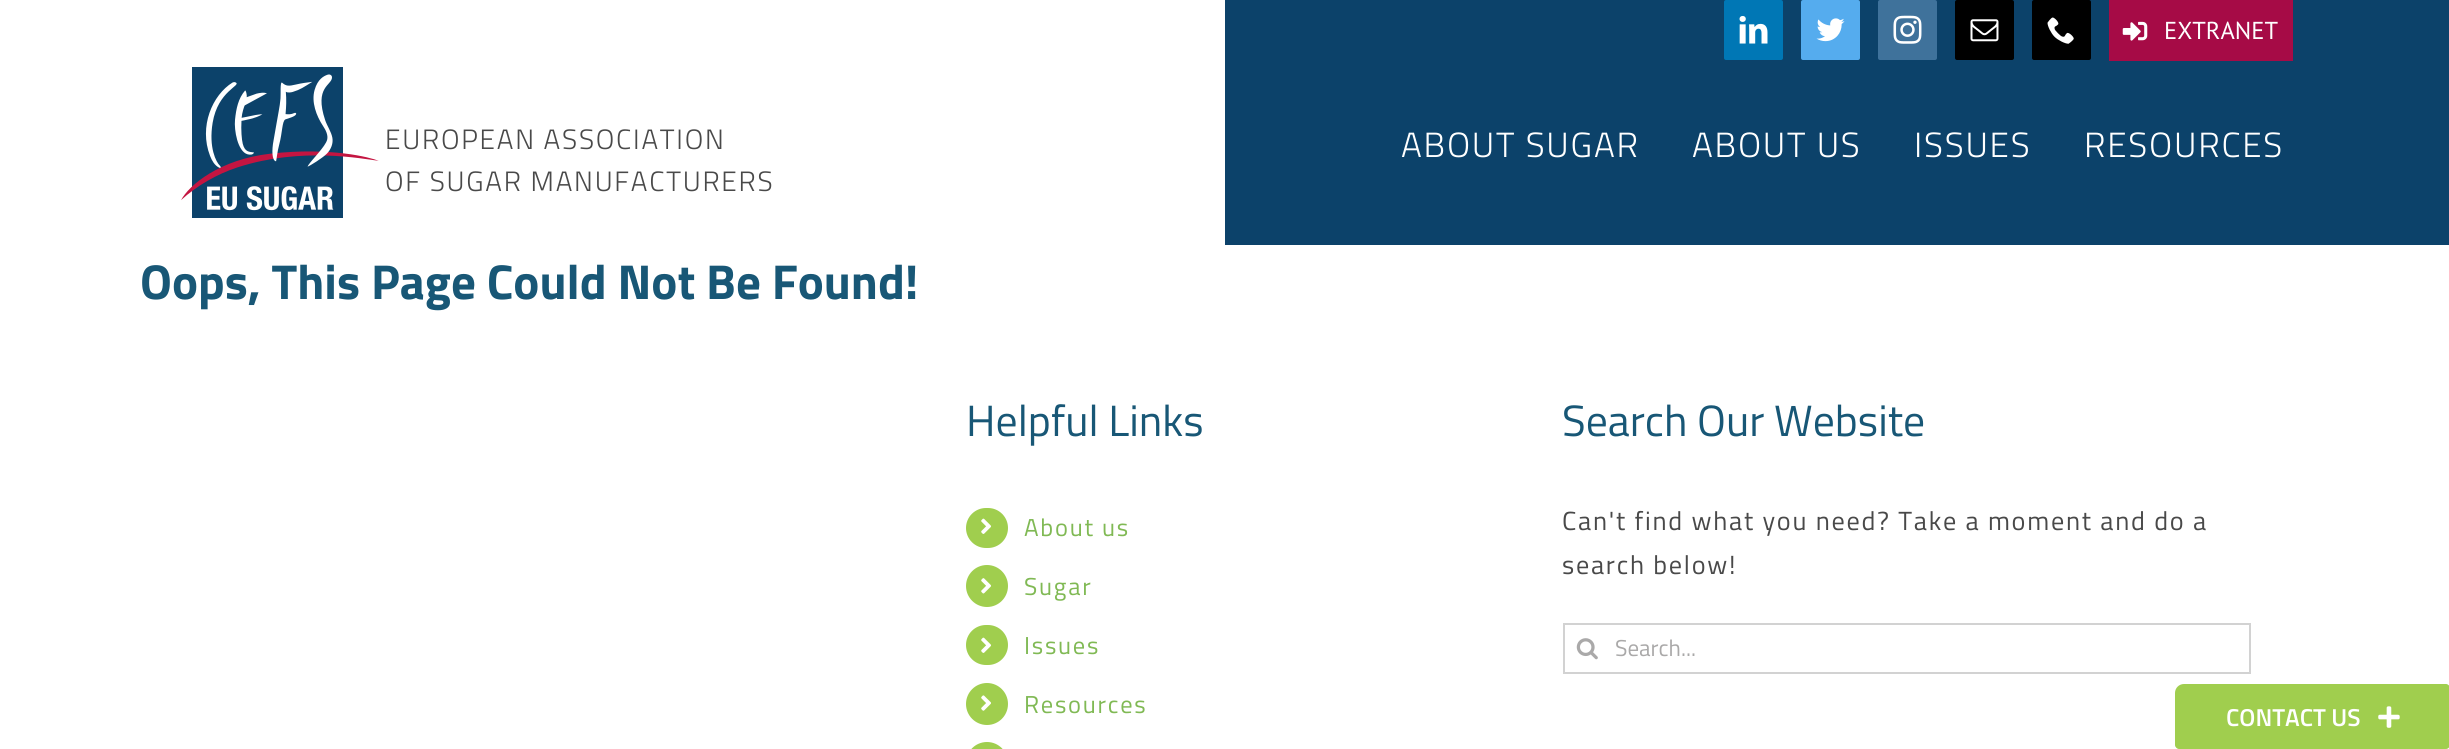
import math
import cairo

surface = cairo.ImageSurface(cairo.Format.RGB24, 2449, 749)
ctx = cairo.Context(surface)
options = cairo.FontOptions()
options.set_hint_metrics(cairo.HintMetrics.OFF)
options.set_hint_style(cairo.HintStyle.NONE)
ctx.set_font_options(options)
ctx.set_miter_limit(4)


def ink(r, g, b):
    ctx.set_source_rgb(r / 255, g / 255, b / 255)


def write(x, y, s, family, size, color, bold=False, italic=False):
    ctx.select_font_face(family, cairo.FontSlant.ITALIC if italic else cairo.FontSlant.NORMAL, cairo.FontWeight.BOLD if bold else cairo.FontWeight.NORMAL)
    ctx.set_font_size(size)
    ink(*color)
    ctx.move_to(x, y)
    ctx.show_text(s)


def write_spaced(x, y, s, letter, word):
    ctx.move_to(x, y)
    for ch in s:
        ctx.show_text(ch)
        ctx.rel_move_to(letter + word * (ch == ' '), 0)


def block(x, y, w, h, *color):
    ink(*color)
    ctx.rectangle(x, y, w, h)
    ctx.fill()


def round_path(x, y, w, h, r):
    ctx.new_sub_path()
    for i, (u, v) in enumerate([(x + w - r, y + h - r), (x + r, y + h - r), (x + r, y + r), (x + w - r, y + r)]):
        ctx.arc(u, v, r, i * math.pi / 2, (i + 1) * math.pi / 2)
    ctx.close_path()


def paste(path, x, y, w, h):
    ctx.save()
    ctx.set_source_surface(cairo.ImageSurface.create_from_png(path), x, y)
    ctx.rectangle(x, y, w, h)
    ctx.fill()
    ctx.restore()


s1 = dict(family="PT Sans", size=24.5, color=(255, 255, 255))
s2 = dict(family="Titillium Web", size=49, color=(24, 87, 118), bold=True)
s3 = dict(family="Titillium Web", size=43.75, color=(24, 87, 118))
s4 = dict(family="Titillium Web", size=23, color=(170, 169, 169))
s5 = dict(family="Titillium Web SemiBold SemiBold", size=24.5, color=(255, 255, 255))

ink(255, 255, 255)
ctx.paint()
block(1225, 0, 1224, 245, 12, 66, 106)
ink(0, 119, 181)
round_path(1725, 1, 57, 58, 1)
ctx.fill_preserve()
ctx.stroke()
paste("pic1.png", 1739, 16, 29, 28)
ink(85, 172, 238)
round_path(1802, 1, 57, 58, 1)
ctx.fill_preserve()
ctx.stroke()
paste("pic2.png", 1816, 18, 29, 24)
ink(63, 114, 155)
round_path(1879, 1, 57, 58, 1)
ctx.fill_preserve()
ctx.stroke()
paste("pic3.png", 1893, 15, 29, 29)
ink(0, 0, 0)
round_path(1956, 1, 57, 58, 1)
ctx.fill_preserve()
ctx.stroke()
paste("pic4.png", 1970, 19, 29, 23)
round_path(2033, 1, 57, 58, 1)
ctx.fill_preserve()
ctx.stroke()
paste("pic5.png", 2047, 17, 27, 27)
block(2109, 0, 184, 61, 166, 11, 70)
paste("pic6.png", 2122, 21, 26, 20)
write(2164, 39, "EXTRANET", **s1)
paste("pic7.png", 181, 67, 198, 151)
ctx.select_font_face("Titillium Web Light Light")
ctx.set_font_size(28)
ink(73, 73, 73)
write_spaced(385, 149, "EUROPEAN ASSOCIATION", 1.75, 0)
write_spaced(385, 191, "OF SUGAR MANUFACTURERS", 1.75, 0)
ctx.set_font_size(35)
ink(255, 255, 255)
write_spaced(1401, 157, "ABOUT SUGAR", 1.75, 0)
write_spaced(1692, 157, "ABOUT US", 1.75, 0)
write_spaced(1914, 157, "ISSUES", 1.75, 0)
write_spaced(2084, 157, "RESOURCES", 1.75, 0)
write(140, 299, "Oops, This Page Could Not Be Found!", **s2)
write(966, 436, "Helpful Links", **s3)
ink(160, 206, 78)
round_path(966, 508, 42, 40, 20)
ctx.fill()
paste("pic8.png", 981, 518, 10, 16)
ctx.set_font_size(24.5)
ink(128, 185, 84)
write_spaced(1024, 536, "About us", 1.75, 0)
ink(160, 206, 78)
ctx.new_path()
ctx.arc(987, 586, 21, 0, 2 * math.pi)
ctx.fill()
paste("pic9.png", 981, 578, 10, 16)
ink(128, 185, 84)
write_spaced(1024, 595, "Sugar", 1.75, 0)
ink(160, 206, 78)
round_path(966, 625, 42, 40, 20)
ctx.fill()
paste("pic8.png", 981, 637, 10, 16)
ink(128, 185, 84)
write_spaced(1024, 654, "Issues", 1.75, 0)
ink(160, 206, 78)
ctx.new_path()
ctx.arc(987, 704, 21, 0, 2 * math.pi)
ctx.fill()
paste("pic10.png", 981, 695, 10, 16)
ink(128, 185, 84)
write_spaced(1024, 713, "Resources", 1.75, 0)
ink(160, 206, 78)
round_path(966, 742, 42, 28, 21)
ctx.fill()
write(1562, 436, "Search Our Website", **s3)
ctx.set_font_size(26.25)
ink(73, 73, 73)
write_spaced(1562, 530, "Can't find what you need? Take a moment and do a", 1.75, 0)
write_spaced(1562, 574, "search below!", 1.75, 0)
ctx.rectangle(1564, 624, 686, 49)
ink(210, 210, 210)
ctx.stroke()
paste("pic11.png", 1576, 638, 22, 22)
write(1615, 656, "Search...", **s4)
ink(160, 206, 78)
ctx.new_path()
ctx.move_to(2184, 684)
ctx.line_to(2446, 684)
ctx.curve_to(2448, 684, 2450, 686, 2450, 688)
ctx.line_to(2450, 745)
ctx.curve_to(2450, 747, 2448, 749, 2446, 749)
ctx.line_to(2179, 749)
ctx.curve_to(2177, 749, 2175, 747, 2175, 745)
ctx.line_to(2175, 693)
ctx.curve_to(2175, 688, 2179, 684, 2184, 684)
ctx.close_path()
ctx.fill()
write(2226, 726, "CONTACT US", **s5)
paste("pic12.png", 2378, 706, 22, 22)
surface.write_to_png("screenshot.png")
